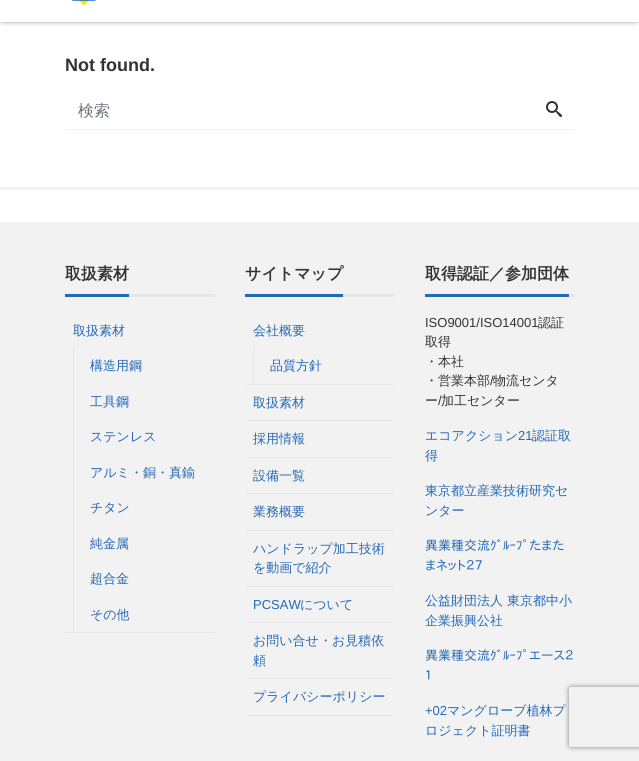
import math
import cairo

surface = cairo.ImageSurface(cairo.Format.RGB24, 639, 761)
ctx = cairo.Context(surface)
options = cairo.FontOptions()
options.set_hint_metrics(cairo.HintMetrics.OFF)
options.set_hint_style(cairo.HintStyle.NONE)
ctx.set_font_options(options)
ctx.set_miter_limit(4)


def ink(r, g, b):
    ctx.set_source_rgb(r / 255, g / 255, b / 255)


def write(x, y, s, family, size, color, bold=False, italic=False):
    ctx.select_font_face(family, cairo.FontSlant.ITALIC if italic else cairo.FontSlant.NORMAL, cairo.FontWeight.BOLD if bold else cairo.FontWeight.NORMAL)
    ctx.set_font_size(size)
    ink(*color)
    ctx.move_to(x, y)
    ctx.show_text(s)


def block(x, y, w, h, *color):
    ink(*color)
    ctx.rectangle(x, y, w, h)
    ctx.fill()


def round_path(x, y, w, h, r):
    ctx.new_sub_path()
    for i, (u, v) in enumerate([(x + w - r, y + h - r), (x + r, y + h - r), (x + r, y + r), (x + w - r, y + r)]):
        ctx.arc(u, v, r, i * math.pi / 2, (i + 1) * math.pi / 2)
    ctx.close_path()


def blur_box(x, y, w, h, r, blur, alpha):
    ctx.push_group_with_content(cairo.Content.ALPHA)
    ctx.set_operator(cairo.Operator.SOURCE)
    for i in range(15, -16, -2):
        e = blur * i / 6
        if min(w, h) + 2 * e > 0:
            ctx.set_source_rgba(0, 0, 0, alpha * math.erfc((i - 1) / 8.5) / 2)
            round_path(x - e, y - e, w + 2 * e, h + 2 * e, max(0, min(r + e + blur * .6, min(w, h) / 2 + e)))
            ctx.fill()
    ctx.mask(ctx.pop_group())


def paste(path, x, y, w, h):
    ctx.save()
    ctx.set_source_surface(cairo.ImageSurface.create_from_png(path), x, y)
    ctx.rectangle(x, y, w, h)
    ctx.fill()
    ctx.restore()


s1 = dict(family="Liberation Sans", size=18, color=(51, 51, 51), bold=True)
s2 = dict(family="WenQuanYi Zen Hei Medium", size=16, color=(108, 117, 125))
s3 = dict(family="WenQuanYi Zen Hei", size=16, color=(51, 51, 51), bold=True)
s4 = dict(family="WenQuanYi Zen Hei Medium", size=13, color=(36, 104, 183))
s5 = dict(family="Liberation Sans", size=13, color=(36, 104, 183))
s6 = dict(family="Liberation Sans", size=13, color=(51, 51, 51))
s7 = dict(family="WenQuanYi Zen Hei Medium", size=13, color=(51, 51, 51))
s8 = dict(family="IPAPGothic", size=13, color=(36, 104, 183))

ink(255, 255, 255)
ctx.paint()
block(0, 22, 639, 1, 241, 241, 241)
ctx.save()
ctx.rectangle(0, 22, 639, 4)
ctx.clip()
ink(0, 0, 0)
blur_box(3, -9, 633, 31, 0, 3, 0.3)
ctx.restore()
paste("pic1.png", 71, 0, 25, 6)
write(65, 71, "Not found.", **s1)
ink(241, 241, 241)
ctx.new_path()
ctx.move_to(575, 130)
ctx.line_to(65, 130)
ctx.line_to(66, 129)
ctx.line_to(574, 129)
ctx.close_path()
ctx.fill()
write(78, 116, "検索", **s2)
paste("pic2.png", 546, 101, 16, 16)
block(0, 187, 639, 3, 241, 241, 241)
block(0, 222, 639, 539, 242, 242, 242)
block(129, 294, 86, 3, 230, 230, 230)
block(65, 294, 64, 3, 36, 104, 183)
write(65, 279, "取扱素材", **s3)
block(65, 632, 150, 1, 230, 230, 230)
write(73, 335, "取扱素材", **s4)
block(73, 348, 1, 284, 230, 230, 230)
write(90, 370, "構造用鋼", **s4)
write(90, 406, "工具鋼", **s4)
write(90, 441, "ステンレス", **s4)
write(90, 477, "アルミ・銅・真鍮", **s4)
write(90, 512, "チタン", **s4)
write(90, 548, "純金属", **s4)
write(90, 583, "超合金", **s4)
write(90, 619, "その他", **s4)
block(343, 294, 52, 3, 230, 230, 230)
block(245, 294, 98, 3, 36, 104, 183)
write(245, 279, "サイトマップ", **s3)
block(245, 384, 150, 1, 230, 230, 230)
write(253, 335, "会社概要", **s4)
block(253, 348, 1, 36, 230, 230, 230)
write(270, 370, "品質方針", **s4)
block(245, 420, 150, 1, 230, 230, 230)
write(253, 407, "取扱素材", **s4)
block(245, 457, 150, 1, 230, 230, 230)
write(253, 443, "採用情報", **s4)
block(245, 493, 150, 1, 230, 230, 230)
write(253, 480, "設備一覧", **s4)
block(245, 530, 150, 1, 230, 230, 230)
write(253, 516, "業務概要", **s4)
block(245, 586, 150, 1, 230, 230, 230)
write(253, 553, "ハンドラップ加工技術", **s4)
write(253, 572, "を動画で紹介", **s4)
block(245, 622, 150, 1, 230, 230, 230)
write(253, 609, "PCSAW", **s5)
write(300, 609, "について", **s4)
block(245, 678, 150, 1, 230, 230, 230)
write(253, 645, "お問い合せ・お見積依", **s4)
write(253, 665, "頼", **s4)
block(245, 715, 150, 1, 230, 230, 230)
write(253, 701, "プライバシーポリシー", **s4)
block(569, 294, 6, 3, 230, 230, 230)
block(425, 294, 144, 3, 36, 104, 183)
write(425, 279, "取得認証／参加団体", **s3)
write(425, 327, "ISO9001/ISO14001", **s6)
write(538, 327, "認証", **s7)
write(425, 346, "取得", **s7)
write(425, 366, "・本社", **s7)
write(425, 385, "・営業本部", **s7)
write(490, 385, "/", **s6)
write(493, 385, "物流センタ", **s7)
write(425, 405, "ー", **s7)
write(438, 405, "/", **s6)
write(441, 405, "加工センター", **s7)
write(425, 440, "エコアクション", **s4)
write(518, 440, "21", **s5)
write(532, 440, "認証取", **s4)
write(425, 460, "得", **s4)
write(425, 495, "東京都立産業技術研究セ", **s4)
write(425, 515, "ンター", **s4)
write(425, 550, "異業種交流ｸﾞﾙｰﾌﾟたまた", **s8)
write(425, 570, "まネット２７", **s8)
write(425, 605, "公益財団法人 東京都中小", **s4)
write(425, 625, "企業振興公社", **s4)
write(425, 660, "異業種交流ｸﾞﾙｰﾌﾟエース２", **s8)
write(425, 680, "１", **s8)
write(425, 715, "+02", **s5)
write(447, 715, "マングローブ植林プ", **s4)
write(425, 735, "ロジェクト証明書", **s4)
ctx.save()
ctx.set_fill_rule(cairo.FillRule.EVEN_ODD)
ctx.new_path()
ctx.move_to(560, 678)
ctx.line_to(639, 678)
ctx.line_to(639, 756)
ctx.line_to(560, 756)
ctx.close_path()
ctx.move_to(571, 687)
ctx.line_to(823, 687)
ctx.curve_to(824, 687, 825, 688, 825, 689)
ctx.line_to(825, 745)
ctx.curve_to(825, 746, 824, 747, 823, 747)
ctx.line_to(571, 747)
ctx.curve_to(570, 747, 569, 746, 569, 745)
ctx.line_to(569, 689)
ctx.curve_to(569, 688, 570, 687, 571, 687)
ctx.close_path()
ctx.clip()
ink(128, 128, 128)
blur_box(569, 687, 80, 60, 2, 2.5, 1)
ctx.restore()
surface.write_to_png("screenshot.png")
